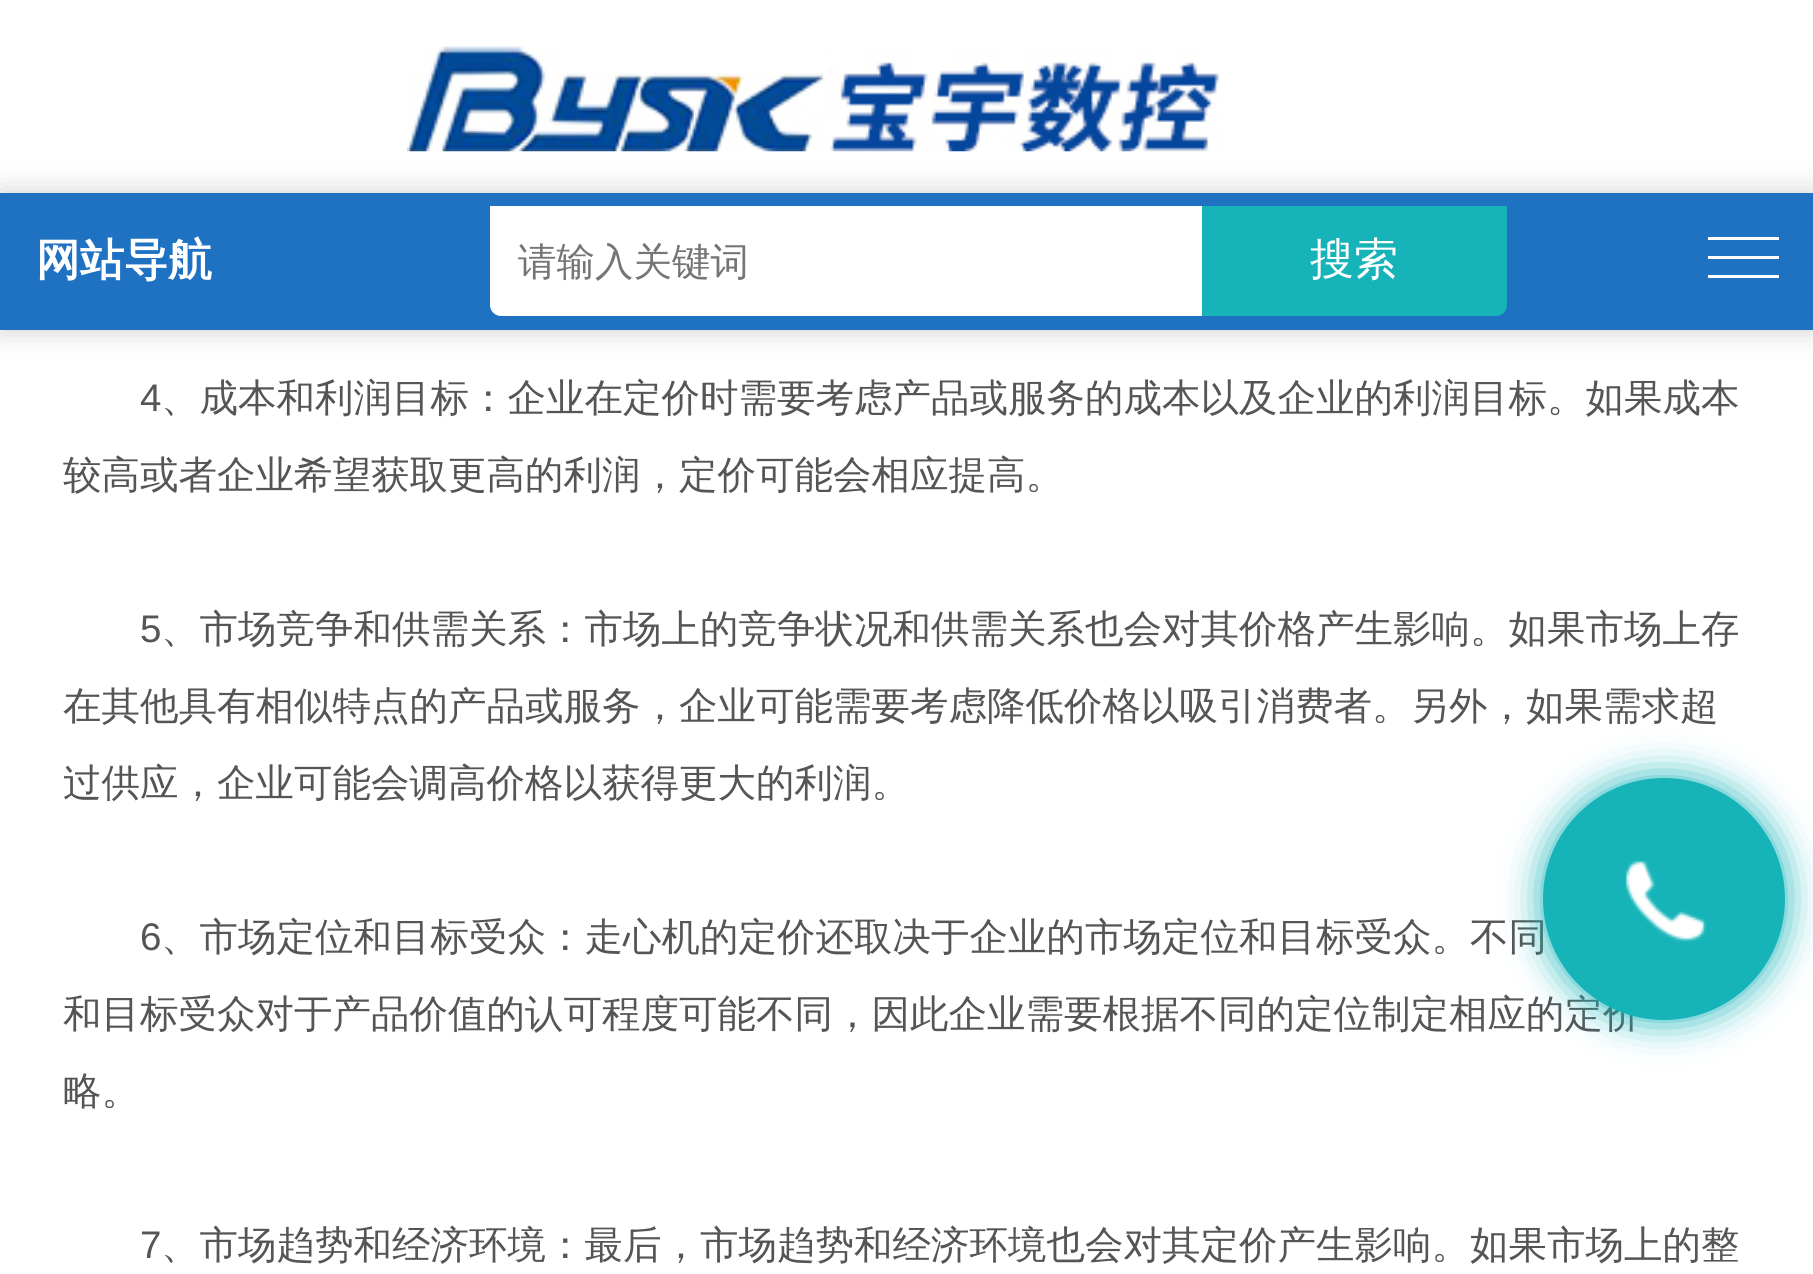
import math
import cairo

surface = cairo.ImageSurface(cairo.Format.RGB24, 1813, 1274)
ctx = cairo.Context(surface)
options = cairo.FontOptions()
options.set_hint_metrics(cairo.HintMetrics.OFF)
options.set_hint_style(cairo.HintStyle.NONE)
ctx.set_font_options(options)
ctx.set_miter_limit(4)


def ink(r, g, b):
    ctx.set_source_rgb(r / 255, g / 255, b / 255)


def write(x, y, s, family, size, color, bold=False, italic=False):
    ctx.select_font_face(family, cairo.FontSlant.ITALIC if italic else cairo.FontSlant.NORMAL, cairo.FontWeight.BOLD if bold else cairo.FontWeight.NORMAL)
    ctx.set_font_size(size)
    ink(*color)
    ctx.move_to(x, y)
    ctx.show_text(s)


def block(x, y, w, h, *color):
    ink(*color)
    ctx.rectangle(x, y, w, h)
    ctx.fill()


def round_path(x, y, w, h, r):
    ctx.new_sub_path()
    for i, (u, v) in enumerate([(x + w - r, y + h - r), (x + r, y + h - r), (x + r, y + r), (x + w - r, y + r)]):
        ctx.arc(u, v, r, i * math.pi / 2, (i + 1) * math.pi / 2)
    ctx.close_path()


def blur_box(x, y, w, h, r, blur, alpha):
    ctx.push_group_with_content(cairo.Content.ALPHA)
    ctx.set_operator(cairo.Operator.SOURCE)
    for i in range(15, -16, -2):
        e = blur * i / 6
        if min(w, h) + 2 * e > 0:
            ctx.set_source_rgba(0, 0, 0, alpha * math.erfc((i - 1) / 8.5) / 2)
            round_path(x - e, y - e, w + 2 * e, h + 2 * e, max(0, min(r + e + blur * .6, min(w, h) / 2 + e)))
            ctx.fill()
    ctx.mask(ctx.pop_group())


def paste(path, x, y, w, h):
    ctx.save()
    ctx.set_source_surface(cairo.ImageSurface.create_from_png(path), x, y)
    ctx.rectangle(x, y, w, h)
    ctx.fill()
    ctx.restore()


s1 = dict(family="WenQuanYi Zen Hei", size=44, color=(255, 255, 255), bold=True)
s2 = dict(family="WenQuanYi Zen Hei Medium", size=38.5, color=(117, 117, 117))
s3 = dict(family="WenQuanYi Zen Hei Medium", size=44, color=(255, 255, 255))
s4 = dict(family="Liberation Sans", size=38.5, color=(85, 85, 85))
s5 = dict(family="WenQuanYi Zen Hei Medium", size=38.5, color=(85, 85, 85))

ink(255, 255, 255)
ctx.paint()
paste("pic1.png", 407, 46, 813, 106)
ink(0, 0, 0)
blur_box(0, 193, 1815, 137, 0, 14, 0.2)
block(0, 193, 1813, 137, 31, 113, 194)
write(36, 275, "网站导航", **s1)
block(1708, 237, 71, 3, 255, 255, 255)
block(1708, 256, 71, 3, 255, 255, 255)
block(1708, 275, 71, 3, 255, 255, 255)
ctx.new_path()
ctx.move_to(490, 206)
ctx.line_to(1202, 206)
ctx.line_to(1202, 316)
ctx.line_to(501, 316)
ctx.curve_to(495, 316, 490, 311, 490, 305)
ctx.close_path()
ctx.fill()
write(518, 275, "请输入关键词", **s2)
ink(22, 180, 185)
ctx.new_path()
ctx.move_to(1202, 206)
ctx.line_to(1507, 206)
ctx.line_to(1507, 305)
ctx.curve_to(1507, 311, 1502, 316, 1496, 316)
ctx.line_to(1202, 316)
ctx.close_path()
ctx.fill()
write(1310, 274, "搜索", **s3)
write(140, 411, "4", **s4)
write(161, 411, "、成本和利润目标：企业在定价时需要考虑产品或服务的成本以及企业的利润目标。如果成本", **s5)
write(63, 488, "较高或者企业希望获取更高的利润，定价可能会相应提高。", **s5)
write(140, 642, "5", **s4)
write(161, 642, "、市场竞争和供需关系：市场上的竞争状况和供需关系也会对其价格产生影响。如果市场上存", **s5)
write(63, 719, "在其他具有相似特点的产品或服务，企业可能需要考虑降低价格以吸引消费者。另外，如果需求超", **s5)
write(63, 796, "过供应，企业可能会调高价格以获得更大的利润。", **s5)
write(140, 950, "6", **s4)
write(161, 950, "、市场定位和目标受众：走心机的定价还取决于企业的市场定位和目标受众。不同", **s5)
write(63, 1027, "和目标受众对于产品价值的认可程度可能不同，因此企业需要根据不同的定位制定相应的定价", **s5)
write(63, 1104, "略。", **s5)
write(140, 1258, "7", **s4)
write(161, 1258, "、市场趋势和经济环境：最后，市场趋势和经济环境也会对其定价产生影响。如果市场上的整", **s5)
ink(22, 180, 185)
blur_box(1543, 778, 242, 242, 121, 19.5, 1)
ink(22, 180, 185)
ctx.arc(1664, 899, 121, 0, 2 * math.pi)
ctx.fill()
paste("pic2.png", 1625, 861, 82, 81)
surface.write_to_png("screenshot.png")
